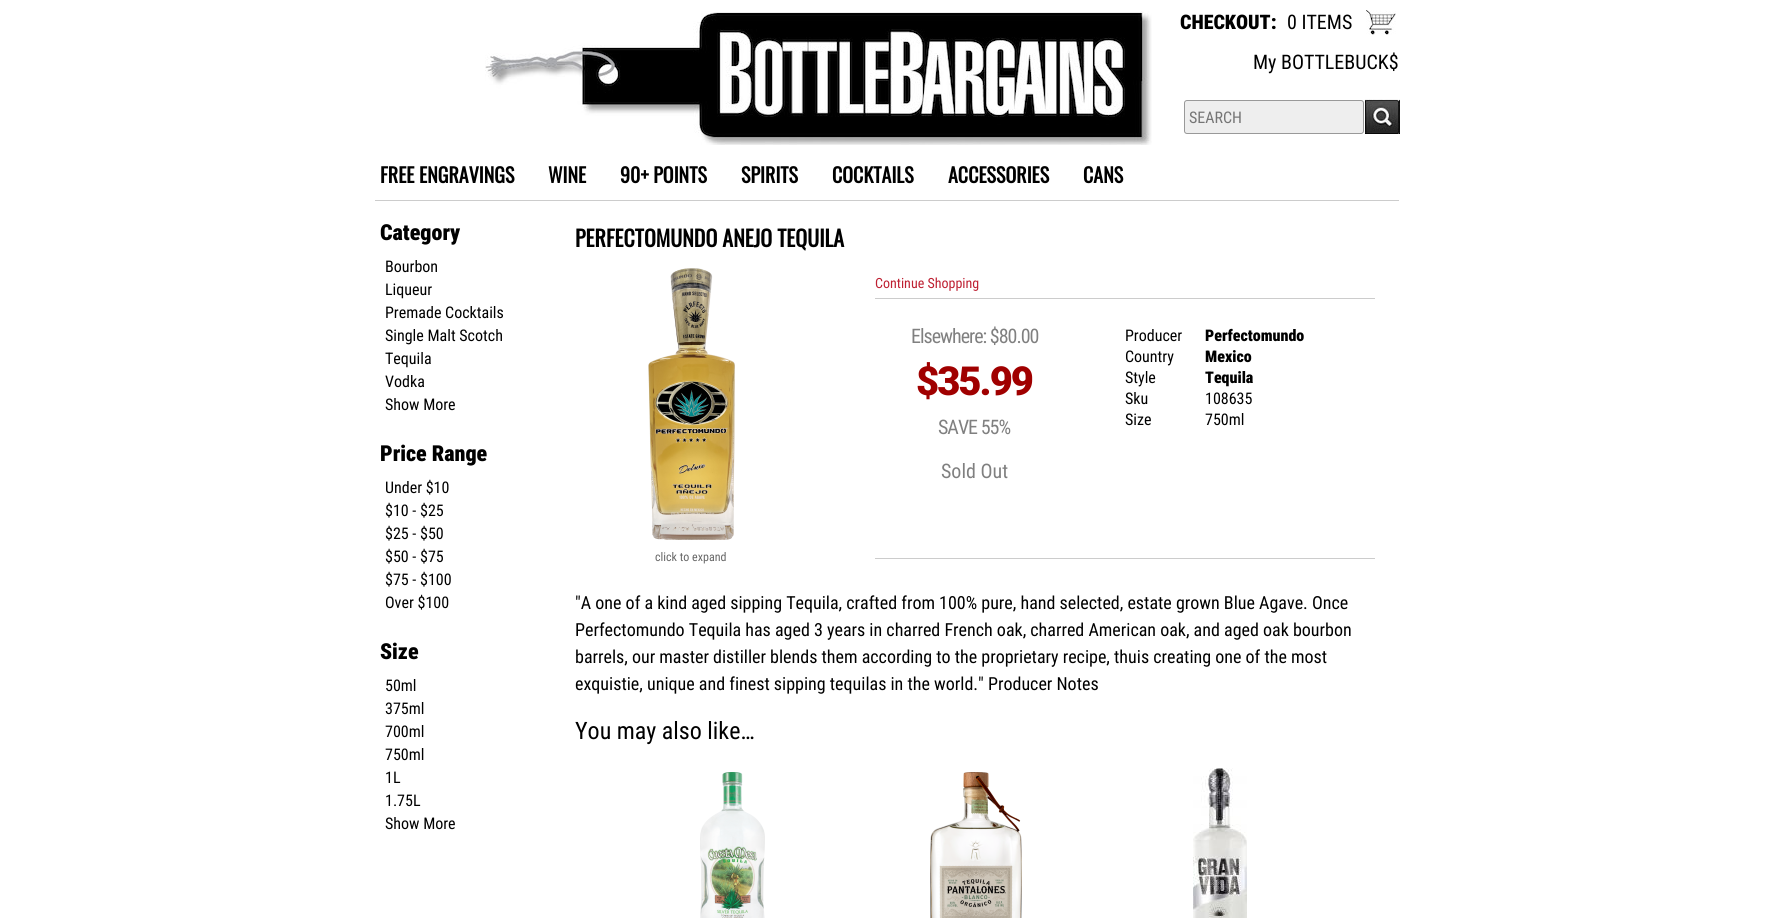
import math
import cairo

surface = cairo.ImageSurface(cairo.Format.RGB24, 1773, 918)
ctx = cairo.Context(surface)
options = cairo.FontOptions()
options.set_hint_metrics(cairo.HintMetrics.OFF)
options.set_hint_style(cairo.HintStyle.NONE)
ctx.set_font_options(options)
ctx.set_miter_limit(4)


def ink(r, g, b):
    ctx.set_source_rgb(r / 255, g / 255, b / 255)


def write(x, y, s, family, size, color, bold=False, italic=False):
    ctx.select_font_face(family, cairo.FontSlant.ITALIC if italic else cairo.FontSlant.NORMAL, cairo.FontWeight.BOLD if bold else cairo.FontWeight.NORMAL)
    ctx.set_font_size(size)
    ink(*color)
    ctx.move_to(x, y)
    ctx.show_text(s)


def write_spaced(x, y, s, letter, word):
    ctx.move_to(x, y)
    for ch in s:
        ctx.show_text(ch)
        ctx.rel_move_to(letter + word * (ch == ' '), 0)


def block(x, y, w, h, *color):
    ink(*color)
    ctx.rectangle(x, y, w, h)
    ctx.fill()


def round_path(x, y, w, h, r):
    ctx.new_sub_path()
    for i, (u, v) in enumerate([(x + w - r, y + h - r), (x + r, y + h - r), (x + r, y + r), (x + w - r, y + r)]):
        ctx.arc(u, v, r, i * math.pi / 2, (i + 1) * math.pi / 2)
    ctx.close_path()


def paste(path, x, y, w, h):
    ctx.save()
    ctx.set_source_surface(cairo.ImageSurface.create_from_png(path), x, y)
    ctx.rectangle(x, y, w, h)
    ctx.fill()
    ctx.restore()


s1 = dict(family="Roboto Condensed Black", size=20, color=(0, 0, 0))
s2 = dict(family="Roboto Condensed", size=20, color=(0, 0, 0))
s3 = dict(family="Roboto Condensed", size=16, color=(117, 117, 117))
s4 = dict(family="Oswald", size=20, color=(0, 0, 0), bold=True)
s5 = dict(family="Roboto Condensed Black", size=22, color=(0, 0, 0))
s6 = dict(family="Roboto Condensed", size=16, color=(0, 0, 0))
s7 = dict(family="Oswald", size=22, color=(0, 0, 0), bold=True)
s8 = dict(family="Roboto Condensed", size=14, color=(190, 32, 50))
s9 = dict(family="Roboto Condensed", size=20, color=(128, 128, 128))
s10 = dict(family="Roboto Condensed Black", size=16, color=(0, 0, 0))
s11 = dict(family="Roboto Condensed", size=12, color=(102, 102, 102))
s12 = dict(family="Roboto Condensed", size=18, color=(0, 0, 0))
s13 = dict(family="Roboto Condensed", size=24, color=(0, 0, 0))

ink(255, 255, 255)
ctx.paint()
block(375, 200, 1024, 1, 204, 204, 204)
paste("pic1.png", 485, 11, 667, 134)
write(1180, 29, "CHECKOUT:", **s1)
write(1287, 29, "0 ITEMS", **s2)
paste("pic2.png", 1366, 10, 30, 25)
write(1253, 69, "My BOTTLEBUCK$", **s2)
ink(238, 238, 238)
round_path(1184.5, 100.5, 179, 33, 2.5)
ctx.fill_preserve()
ink(153, 153, 153)
ctx.set_line_width(1)
ctx.stroke()
write(1189, 123, "SEARCH", **s3)
paste("pic3.png", 1365, 99, 35, 35)
write(380, 183, "FREE ENGRAVINGS", **s4)
write(548, 183, "WINE", **s4)
write(620, 183, "90+ POINTS", **s4)
write(741, 183, "SPIRITS", **s4)
write(832, 183, "COCKTAILS", **s4)
write(948, 183, "ACCESSORIES", **s4)
write(1083, 183, "CANS", **s4)
write(380, 240, "Category", **s5)
write(385, 272, "Bourbon", **s6)
write(385, 295, "Liqueur", **s6)
write(385, 318, "Premade Cocktails", **s6)
write(385, 341, "Single Malt Scotch", **s6)
write(385, 364, "Tequila", **s6)
write(385, 387, "Vodka", **s6)
write(385, 410, "Show More", **s6)
write(380, 461, "Price Range", **s5)
write(385, 493, "Under $10", **s6)
write(385, 516, "$10 - $25", **s6)
write(385, 539, "$25 - $50", **s6)
write(385, 562, "$50 - $75", **s6)
write(385, 585, "$75 - $100", **s6)
write(385, 608, "Over $100", **s6)
write(380, 659, "Size", **s5)
write(385, 691, "50ml", **s6)
write(385, 714, "375ml", **s6)
write(385, 737, "700ml", **s6)
write(385, 760, "750ml", **s6)
write(385, 783, "1L", **s6)
write(385, 806, "1.75L", **s6)
write(385, 829, "Show More", **s6)
write(575, 247, "PERFECTOMUNDO ANEJO TEQUILA", **s7)
block(875, 298, 500, 1, 204, 204, 204)
write(875, 288, "Continue Shopping", **s8)
block(875, 558, 500, 1, 204, 204, 204)
ctx.set_font_size(20)
ink(128, 128, 128)
write_spaced(911, 343, "Elsewhere: $80.00", -1, 0)
ctx.select_font_face("Roboto Black")
ctx.set_font_size(40)
ink(160, 0, 0)
write_spaced(916, 395, "$35.99", -2, 0)
ctx.select_font_face("Roboto Condensed")
ctx.set_font_size(20)
ink(128, 128, 128)
write_spaced(938, 434, "SAVE 55%", -1, 0)
write(941, 478, "Sold Out", **s9)
write(1125, 341, "Producer", **s6)
write(1205, 341, "Perfectomundo", **s10)
write(1125, 362, "Country", **s6)
write(1205, 362, "Mexico", **s10)
write(1125, 383, "Style", **s6)
write(1205, 383, "Tequila", **s10)
write(1125, 404, "Sku", **s6)
write(1205, 404, "108635", **s6)
write(1125, 425, "Size", **s6)
write(1205, 425, "750ml", **s6)
paste("pic4.png", 648, 268, 87, 272)
write(655, 561, "click to expand", **s11)
write(575, 609, "\"A one of a kind aged sipping Tequila, crafted from 100% pure, hand selected, estate grown Blue Agave. Once", **s12)
write(575, 636, "Perfectomundo Tequila has aged 3 years in charred French oak, charred American oak, and aged oak bourbon", **s12)
write(575, 663, "barrels, our master distiller blends them according to the proprietary recipe, thuis creating one of the most", **s12)
write(575, 690, "exquistie, unique and finest sipping tequilas in the world.\" Producer Notes", **s12)
write(575, 739, "You may also like…", **s13)
paste("pic5.png", 700, 772, 65, 146)
paste("pic6.png", 930, 772, 92, 146)
paste("pic7.png", 1193, 768, 54, 150)
surface.write_to_png("screenshot.png")
